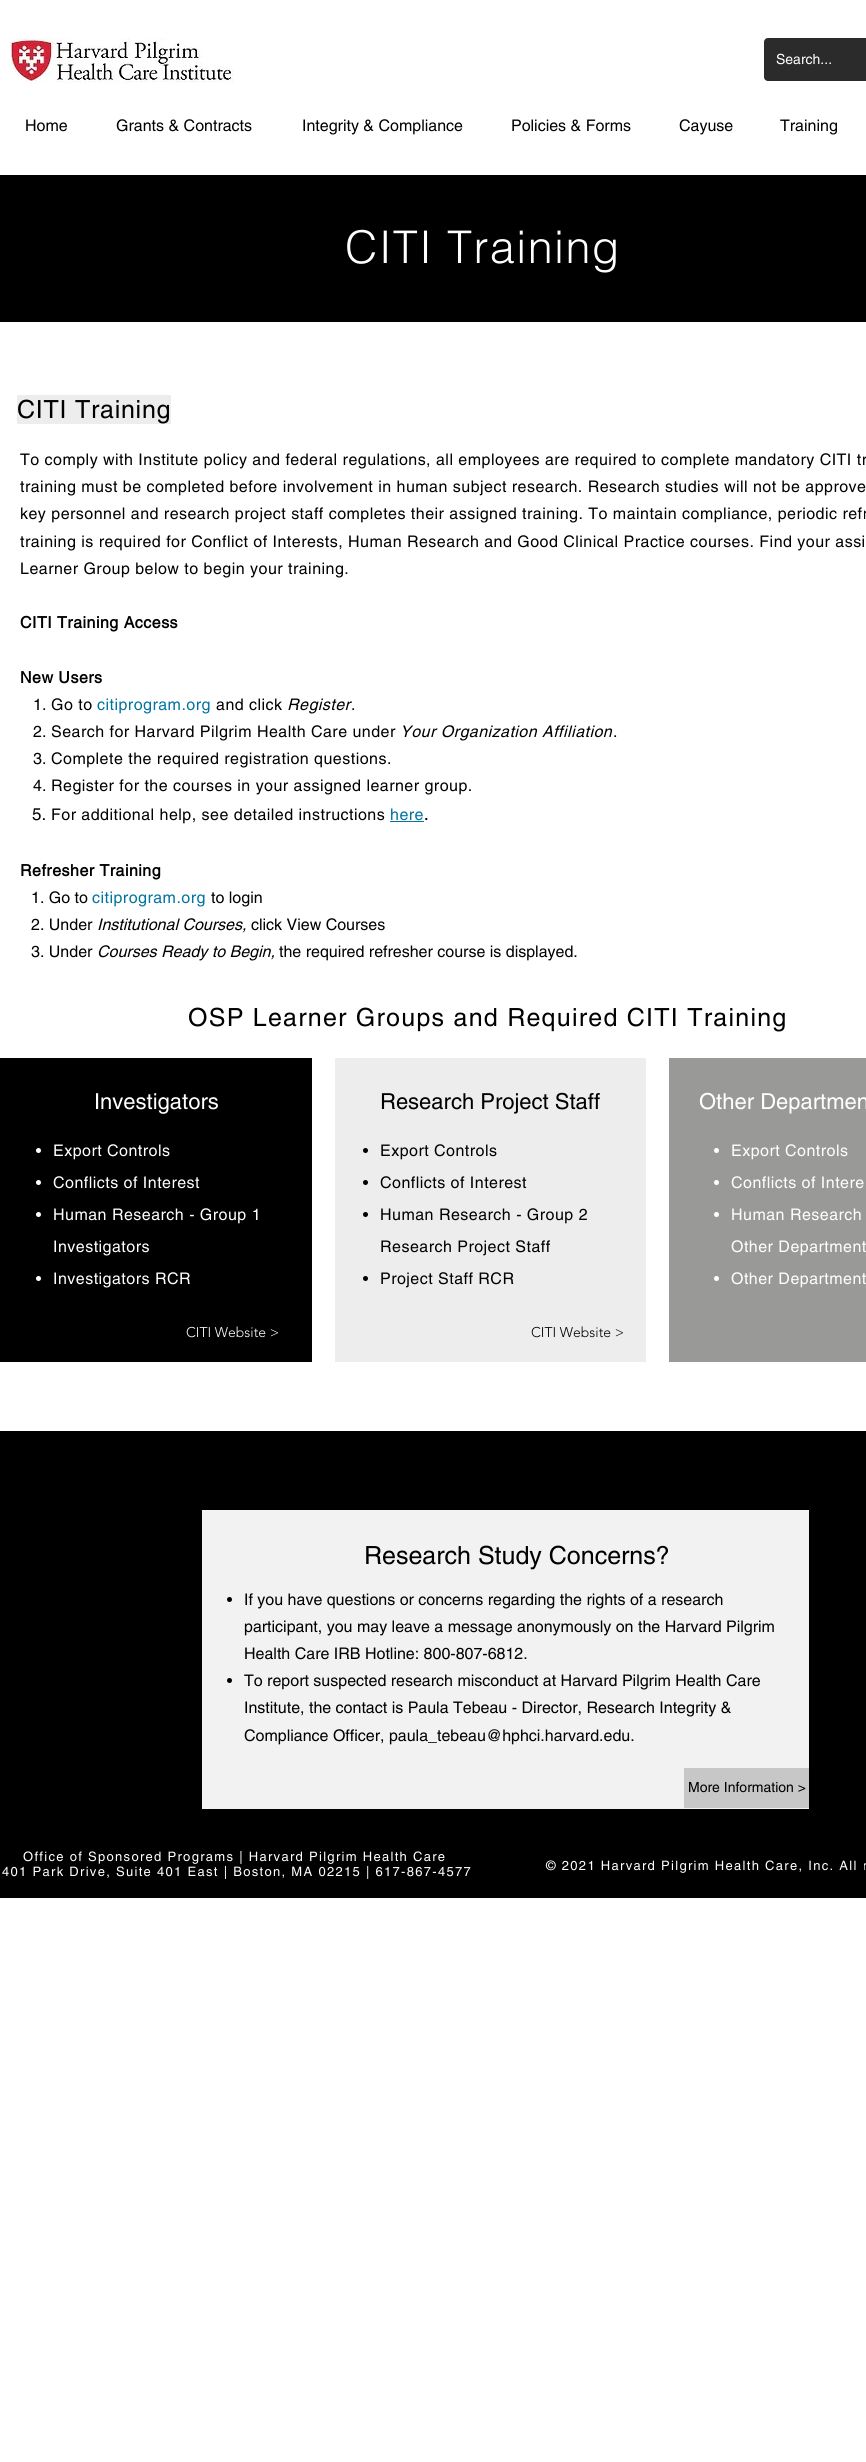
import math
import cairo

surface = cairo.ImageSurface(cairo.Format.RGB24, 866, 2462)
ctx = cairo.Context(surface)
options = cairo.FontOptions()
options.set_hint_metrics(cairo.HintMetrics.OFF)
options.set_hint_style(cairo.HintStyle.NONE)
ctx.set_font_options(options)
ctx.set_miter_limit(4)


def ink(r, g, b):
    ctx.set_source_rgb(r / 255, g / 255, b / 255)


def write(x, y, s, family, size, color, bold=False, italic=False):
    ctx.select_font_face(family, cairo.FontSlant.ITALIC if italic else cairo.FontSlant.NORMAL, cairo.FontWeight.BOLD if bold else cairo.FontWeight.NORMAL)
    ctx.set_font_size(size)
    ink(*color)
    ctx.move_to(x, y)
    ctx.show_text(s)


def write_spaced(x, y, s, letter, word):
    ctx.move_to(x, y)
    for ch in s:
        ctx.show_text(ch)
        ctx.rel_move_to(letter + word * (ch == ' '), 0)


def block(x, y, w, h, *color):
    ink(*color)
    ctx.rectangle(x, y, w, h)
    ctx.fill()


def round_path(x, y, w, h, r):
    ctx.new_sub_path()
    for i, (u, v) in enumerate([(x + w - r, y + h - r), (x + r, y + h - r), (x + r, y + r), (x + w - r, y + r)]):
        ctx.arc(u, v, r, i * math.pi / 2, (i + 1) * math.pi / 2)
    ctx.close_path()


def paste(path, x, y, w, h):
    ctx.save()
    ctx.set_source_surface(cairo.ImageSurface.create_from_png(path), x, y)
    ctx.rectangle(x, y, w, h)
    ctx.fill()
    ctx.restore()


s1 = dict(family="helvetica", size=14, color=(255, 255, 255))
s2 = dict(family="helvetica", size=16, color=(0, 0, 0))
s3 = dict(family="helvetica", size=17, color=(0, 0, 0))
s4 = dict(family="helvetica", size=15, color=(0, 0, 0), bold=True)
s5 = dict(family="helvetica", size=16, color=(0, 0, 0), italic=True)
s6 = dict(family="helvetica", size=22, color=(255, 255, 255))
s7 = dict(family="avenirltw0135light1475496 Light", size=14, color=(255, 255, 255))
s8 = dict(family="helvetica", size=22, color=(0, 0, 0))
s9 = dict(family="avenirltw0135light1475496 Light", size=14, color=(0, 0, 0))
s10 = dict(family="helvetica", size=25, color=(0, 0, 0))
s11 = dict(family="helvetica", size=14, color=(0, 0, 0))

ink(255, 255, 255)
ctx.paint()
paste("pic1.png", 10, 38, 224, 46)
ink(43, 43, 43)
round_path(764, 38, 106, 43, 4)
ctx.fill()
write(776, 64, "Search...", **s1)
write(25, 131, "Home", **s2)
write(116, 131, "Grants & Contracts", **s2)
write(302, 131, "Integrity & Compliance", **s2)
write(511, 131, "Policies & Forms", **s2)
write(679, 131, "Cayuse", **s2)
write(780, 131, "Training", **s2)
block(0, 175, 866, 147, 0, 0, 0)
ctx.select_font_face("helvetica Light")
ctx.set_font_size(45)
ink(255, 255, 255)
write_spaced(345, 263, "CITI Training", 1.4, 0)
block(17, 395, 154, 29, 237, 237, 237)
ctx.select_font_face("helvetica")
ctx.set_font_size(25)
ink(0, 0, 0)
write_spaced(17, 418, "CITI Training", 0.75, 0)
ctx.set_font_size(16)
write_spaced(20, 465, "To comply with Institute policy and federal regulations, all employees are required to complete mandatory CITI tr", 0.48, 0)
write_spaced(20, 492, "training must be completed before involvement in human subject research. Research studies will not be approve", 0.48, 0)
write_spaced(20, 519, "key personnel and research project staff completes their assigned training. To maintain compliance, periodic refr", 0.48, 0)
write_spaced(20, 547, "training is required for Conflict of Interests, Human Research and Good Clinical Practice courses. Find your assi", 0.48, 0)
write_spaced(20, 574, "Learner Group below to begin your training.", 0.48, 0)
ctx.select_font_face("helvetica", cairo.FontSlant.NORMAL, cairo.FontWeight.BOLD)
write_spaced(20, 628, "CITI Training Access", 0.48, 0)
write_spaced(20, 683, "New Users", 0.48, 0)
write(33, 710, "1.", **s2)
write_spaced(51, 710, "Go to", 0.48, 0)
ink(0, 115, 159)
write_spaced(97, 710, "citiprogram.org", 0.48, 0)
ink(0, 0, 0)
write_spaced(216, 710, "and click", 0.48, 0)
ctx.select_font_face("helvetica", cairo.FontSlant.ITALIC)
write_spaced(287, 710, "Register", 0.48, 0)
ctx.select_font_face("helvetica")
write_spaced(351, 710, ".", 0.48, 0)
write(33, 737, "2.", **s2)
write_spaced(51, 737, "Search for Harvard Pilgrim Health Care under", 0.48, 0)
ctx.select_font_face("helvetica", cairo.FontSlant.ITALIC)
write_spaced(400, 737, "Your Organization Affiliation", 0.48, 0)
ctx.select_font_face("helvetica")
write_spaced(613, 737, ".", 0.48, 0)
write(33, 764, "3.", **s2)
write_spaced(51, 764, "Complete the required registration questions.", 0.48, 0)
write(33, 791, "4.", **s2)
write_spaced(51, 791, "Register for the courses in your assigned learner group.", 0.48, 0)
write(32, 820, "5.", **s3)
ctx.set_font_size(16)
write_spaced(51, 820, "For additional help, see detailed instructions", 0.48, 0)
ink(0, 115, 159)
write_spaced(390, 820, "here", 0.48, 0)
write(424, 820, ".", **s4)
block(390, 821, 34, 1, 0, 115, 159)
ctx.set_font_size(16)
ink(0, 0, 0)
write_spaced(20, 876, "Refresher Training", 0.48, 0)
write(31, 903, "1. Go to", **s2)
ink(0, 115, 159)
write_spaced(92, 903, "citiprogram.org", 0.48, 0)
write(211, 903, "to login", **s2)
write(31, 930, "2. Under", **s2)
write(97, 930, "Institutional Courses,", **s5)
write(251, 930, "click View Courses", **s2)
write(31, 957, "3. Under", **s2)
write(97, 957, "Courses Ready to Begin,", **s5)
write(279, 957, "the required refresher course is displayed.", **s2)
ctx.set_font_size(25)
write_spaced(188, 1026, "OSP Learner Groups and Required CITI Training", 1.25, 0)
block(0, 1058, 312, 304, 0, 0, 0)
write(94, 1109, "Investigators", **s6)
ctx.new_path()
ctx.arc(38.5, 1150.5, 2.5, 0, 2 * math.pi)
ctx.fill()
ctx.set_font_size(16)
write_spaced(53, 1156, "Export Controls", 0.48, 0)
ctx.new_path()
ctx.arc(38.5, 1182.5, 2.5, 0, 2 * math.pi)
ctx.fill()
write_spaced(53, 1188, "Conflicts of Interest", 0.48, 0)
ctx.new_path()
ctx.arc(38.5, 1214.5, 2.5, 0, 2 * math.pi)
ctx.fill()
write_spaced(53, 1220, "Human Research - Group 1", 0.48, 0)
write_spaced(53, 1252, "Investigators", 0.48, 0)
ctx.new_path()
ctx.arc(38.5, 1278.5, 2.5, 0, 2 * math.pi)
ctx.fill()
write_spaced(53, 1284, "Investigators RCR", 0.48, 0)
write(186, 1337, "CITI Website >", **s7)
block(335, 1058, 311, 304, 237, 237, 237)
write(380, 1109, "Research Project Staff", **s8)
ctx.new_path()
ctx.arc(365.5, 1150.5, 2.5, 0, 2 * math.pi)
ctx.fill()
ctx.set_font_size(16)
write_spaced(380, 1156, "Export Controls", 0.48, 0)
ctx.new_path()
ctx.arc(365.5, 1182.5, 2.5, 0, 2 * math.pi)
ctx.fill()
write_spaced(380, 1188, "Conflicts of Interest", 0.48, 0)
ctx.new_path()
ctx.arc(365.5, 1214.5, 2.5, 0, 2 * math.pi)
ctx.fill()
write_spaced(380, 1220, "Human Research - Group 2", 0.48, 0)
write_spaced(380, 1252, "Research Project Staff", 0.48, 0)
ctx.new_path()
ctx.arc(365.5, 1278.5, 2.5, 0, 2 * math.pi)
ctx.fill()
write_spaced(380, 1284, "Project Staff RCR", 0.48, 0)
write(531, 1337, "CITI Website >", **s9)
block(669, 1058, 197, 304, 153, 153, 151)
write(699, 1109, "Other Departmen", **s6)
ctx.new_path()
ctx.arc(716.5, 1150.5, 2.5, 0, 2 * math.pi)
ctx.fill()
ctx.set_font_size(16)
write_spaced(731, 1156, "Export Controls", 0.48, 0)
ctx.new_path()
ctx.arc(716.5, 1182.5, 2.5, 0, 2 * math.pi)
ctx.fill()
write_spaced(731, 1188, "Conflicts of Intere", 0.48, 0)
ctx.new_path()
ctx.arc(716.5, 1214.5, 2.5, 0, 2 * math.pi)
ctx.fill()
write_spaced(731, 1220, "Human Research", 0.48, 0)
write_spaced(731, 1252, "Other Department", 0.48, 0)
ctx.new_path()
ctx.arc(716.5, 1278.5, 2.5, 0, 2 * math.pi)
ctx.fill()
write_spaced(731, 1284, "Other Department", 0.48, 0)
block(0, 1431, 866, 467, 0, 0, 0)
block(202, 1510, 607, 299, 242, 242, 242)
write(364, 1564, "Research Study Concerns?", **s10)
ctx.new_path()
ctx.arc(229.5, 1599.5, 2.5, 0, 2 * math.pi)
ctx.fill()
write(244, 1605, "If you have questions or concerns regarding the rights of a research", **s2)
write(244, 1632, "participant, you may leave a message anonymously on the Harvard Pilgrim", **s2)
write(244, 1659, "Health Care IRB Hotline: 800-807-6812.", **s2)
ctx.new_path()
ctx.arc(229.5, 1680.5, 2.5, 0, 2 * math.pi)
ctx.fill()
write(244, 1686, "To report suspected research misconduct at Harvard Pilgrim Health Care", **s2)
write(244, 1713, "Institute, the contact is Paula Tebeau - Director, Research Integrity &", **s2)
write(244, 1741, "Compliance Officer, paula_tebeau@hphci.harvard.edu.", **s2)
block(684, 1768, 125, 40, 199, 199, 199)
write(688, 1792, "More Information >", **s11)
ctx.set_font_size(13)
ink(255, 255, 255)
write_spaced(23, 1861, "Office of Sponsored Programs | Harvard Pilgrim Health Care", 1.3, 0)
write_spaced(2, 1876, "401 Park Drive, Suite 401 East | Boston, MA 02215 | 617-867-4577", 1.3, 0)
write_spaced(546, 1870, "© 2021 Harvard Pilgrim Health Care, Inc. All r", 1.3, 0)
surface.write_to_png("screenshot.png")
